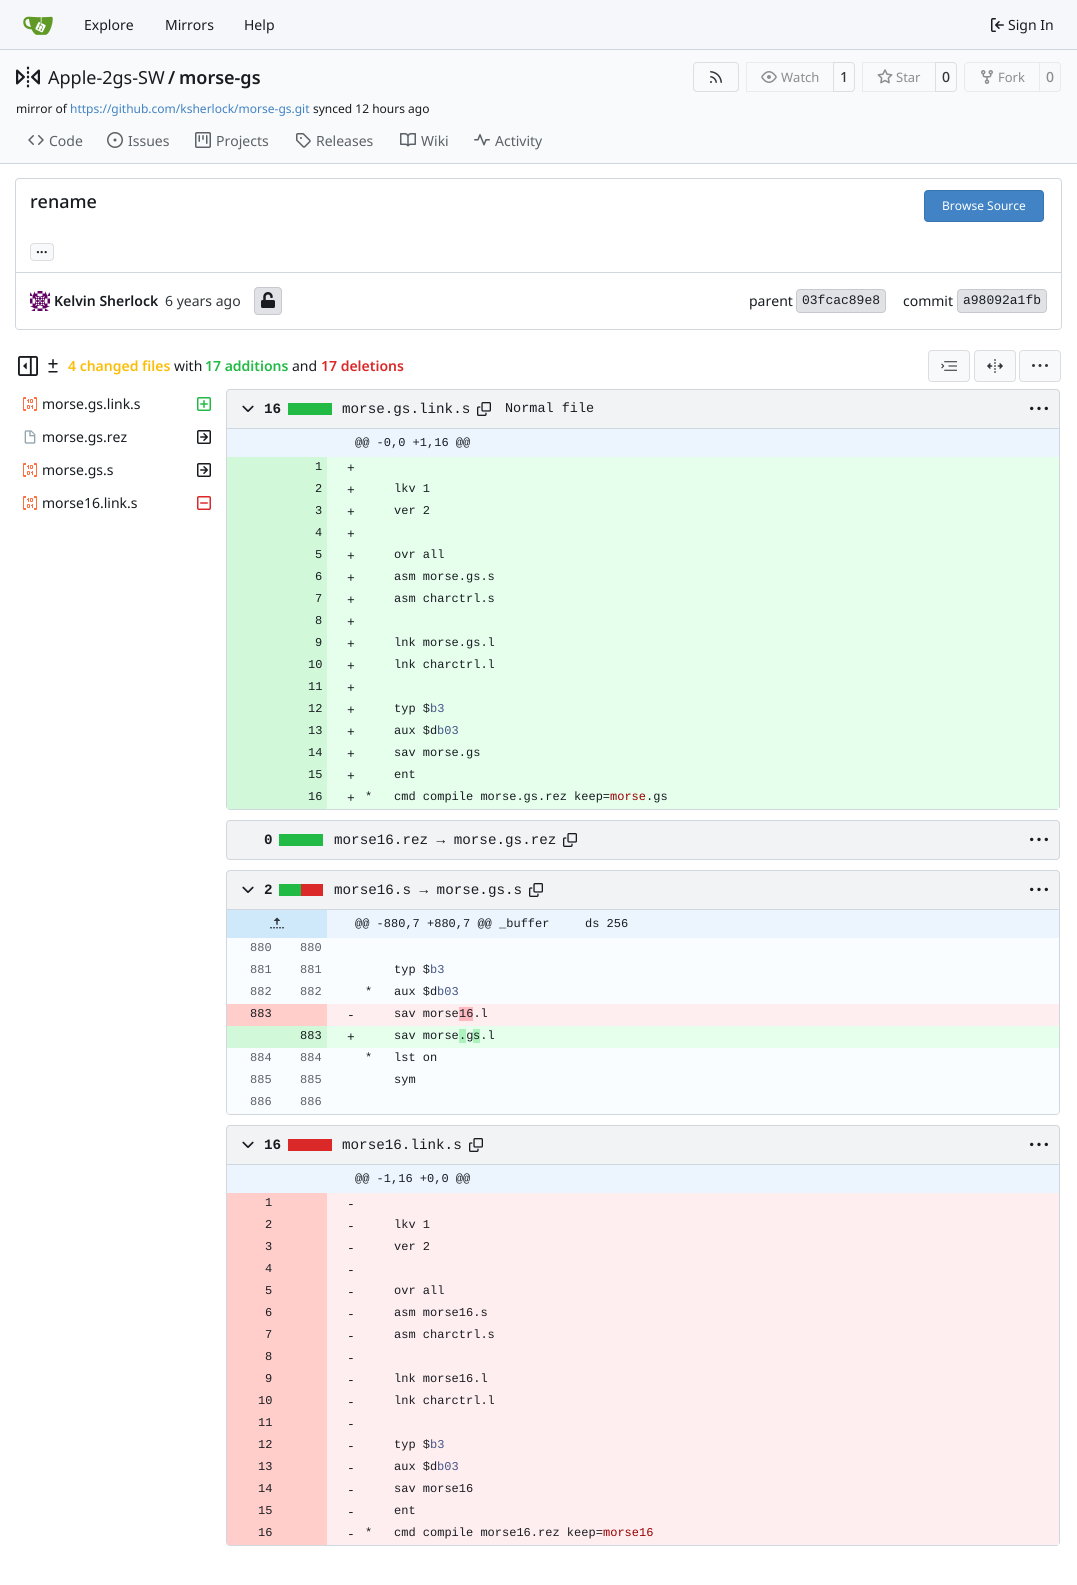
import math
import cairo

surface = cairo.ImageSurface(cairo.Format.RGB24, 1077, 1585)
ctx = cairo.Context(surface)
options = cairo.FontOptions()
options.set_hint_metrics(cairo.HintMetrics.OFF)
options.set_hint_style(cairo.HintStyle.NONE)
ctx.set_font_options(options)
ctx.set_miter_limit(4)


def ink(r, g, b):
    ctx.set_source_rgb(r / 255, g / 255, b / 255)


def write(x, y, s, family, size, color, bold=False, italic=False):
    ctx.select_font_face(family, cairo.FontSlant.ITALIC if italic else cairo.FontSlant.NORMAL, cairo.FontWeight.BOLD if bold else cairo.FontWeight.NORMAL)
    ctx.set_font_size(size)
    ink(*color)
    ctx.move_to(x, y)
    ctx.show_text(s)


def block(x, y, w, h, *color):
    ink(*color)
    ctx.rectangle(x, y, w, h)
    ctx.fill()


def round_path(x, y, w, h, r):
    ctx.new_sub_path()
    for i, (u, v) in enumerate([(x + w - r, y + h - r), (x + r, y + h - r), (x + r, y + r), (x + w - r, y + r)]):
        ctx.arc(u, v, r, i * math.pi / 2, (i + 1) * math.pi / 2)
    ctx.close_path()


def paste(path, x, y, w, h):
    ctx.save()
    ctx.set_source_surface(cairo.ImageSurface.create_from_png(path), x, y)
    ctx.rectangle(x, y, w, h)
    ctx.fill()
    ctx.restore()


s1 = dict(family="Noto Sans", size=14, color=(24, 28, 33))
s2 = dict(family="Noto Sans", size=18, color=(24, 28, 33))
s3 = dict(family="Noto Sans SemiBold", size=18, color=(24, 28, 33))
s4 = dict(family="Noto Sans", size=13, color=(138, 142, 145))
s5 = dict(family="Noto Sans Medium", size=14, color=(48, 54, 59))
s6 = dict(family="Noto Sans Medium", size=14, color=(138, 142, 145))
s7 = dict(family="Noto Sans", size=12, color=(24, 28, 33))
s8 = dict(family="Noto Sans", size=12, color=(65, 131, 196))
s9 = dict(family="Noto Sans", size=14, color=(91, 97, 103))
s10 = dict(family="Noto Sans Medium", size=18, color=(24, 28, 33))
s11 = dict(family="Noto Sans", size=12, color=(255, 255, 255))
s12 = dict(family="Noto Sans SemiBold", size=14, color=(24, 28, 33))
s13 = dict(family="Noto Sans", size=14, color=(48, 54, 59))
s14 = dict(family="Liberation Mono", size=13, color=(24, 28, 33))
s15 = dict(family="Noto Sans SemiBold", size=14, color=(251, 189, 8))
s16 = dict(family="Noto Sans SemiBold", size=14, color=(33, 186, 69))
s17 = dict(family="Noto Sans SemiBold", size=14, color=(219, 40, 40))
s18 = dict(family="Liberation Mono", size=14.25, color=(24, 28, 33), bold=True)
s19 = dict(family="Liberation Mono", size=14.25, color=(24, 28, 33))
s20 = dict(family="Liberation Mono", size=13.5, color=(24, 28, 33))
s21 = dict(family="Liberation Mono", size=12, color=(24, 28, 33))
s22 = dict(family="Liberation Mono", size=12, color=(68, 85, 136))
s23 = dict(family="Liberation Mono", size=12, color=(153, 0, 0))
s24 = dict(family="Liberation Mono", size=12, color=(91, 97, 103))

ink(255, 255, 255)
ctx.paint()
block(0, 0, 1077, 49, 246, 247, 250)
block(0, 49, 1077, 1, 208, 215, 222)
paste("pic1.png", 23, 16, 30, 19)
write(84, 30, "Explore", **s1)
write(165, 30, "Mirrors", **s1)
write(244, 30, "Help", **s1)
paste("pic2.png", 991, 18, 13, 14)
write(1008, 30, "Sign In", **s1)
block(0, 50, 1077, 113, 249, 250, 251)
paste("pic3.png", 16, 66, 24, 22)
write(48, 84, "Apple-2gs-SW", **s2)
write(168, 84, "/", **s3)
write(179, 84, "morse-gs", **s3)
round_path(693.5, 62.5, 45, 29, 3.5)
ink(221, 222, 225)
ctx.set_line_width(1)
ctx.stroke()
paste("pic4.png", 710, 71, 12, 12)
ctx.new_path()
ctx.move_to(833.5, 62.5)
ctx.line_to(851, 62.5)
ctx.curve_to(853, 62.5, 854.5, 64, 854.5, 66)
ctx.line_to(854.5, 88)
ctx.curve_to(854.5, 90, 853, 91.5, 851, 91.5)
ctx.line_to(833.5, 91.5)
ctx.close_path()
ctx.stroke()
ctx.set_source_rgba(0.973, 0.976, 0.984, 0.55)
ctx.new_path()
ctx.move_to(750, 62)
ctx.line_to(834, 62)
ctx.line_to(834, 92)
ctx.line_to(750, 92)
ctx.curve_to(748, 92, 746, 90, 746, 88)
ctx.line_to(746, 66)
ctx.curve_to(746, 64, 748, 62, 750, 62)
ctx.close_path()
ctx.fill()
ctx.rectangle(746.5, 62.5, 87, 29)
ctx.set_source_rgba(0, 0, 0.09, 0.06)
ctx.stroke()
paste("pic5.png", 761, 71, 16, 12)
write(781, 82, "Watch", **s4)
write(840, 82, "1", **s5)
ctx.new_path()
ctx.move_to(935.5, 62.5)
ctx.line_to(953, 62.5)
ctx.curve_to(955, 62.5, 956.5, 64, 956.5, 66)
ctx.line_to(956.5, 88)
ctx.curve_to(956.5, 90, 955, 91.5, 953, 91.5)
ctx.line_to(935.5, 91.5)
ctx.close_path()
ink(221, 222, 225)
ctx.stroke()
ctx.set_source_rgba(0.973, 0.976, 0.984, 0.55)
ctx.new_path()
ctx.move_to(866, 62)
ctx.line_to(936, 62)
ctx.line_to(936, 92)
ctx.line_to(866, 92)
ctx.curve_to(864, 92, 862, 90, 862, 88)
ctx.line_to(862, 66)
ctx.curve_to(862, 64, 864, 62, 866, 62)
ctx.close_path()
ctx.fill()
ctx.rectangle(862.5, 62.5, 73, 29)
ctx.set_source_rgba(0, 0, 0.09, 0.06)
ctx.stroke()
paste("pic6.png", 877, 69, 16, 15)
write(896, 82, "Star", **s4)
write(942, 82, "0", **s5)
ctx.new_path()
ctx.move_to(968, 62.5)
ctx.line_to(1039.5, 62.5)
ctx.line_to(1039.5, 91.5)
ctx.line_to(968, 91.5)
ctx.curve_to(966, 91.5, 964.5, 90, 964.5, 88)
ctx.line_to(964.5, 66)
ctx.curve_to(964.5, 64, 966, 62.5, 968, 62.5)
ctx.close_path()
ink(233, 234, 237)
ctx.stroke()
paste("pic7.png", 981, 70, 12, 14)
write(998, 82, "Fork", **s4)
ink(248, 249, 251)
ctx.new_path()
ctx.move_to(1039.5, 62.5)
ctx.line_to(1057, 62.5)
ctx.curve_to(1059, 62.5, 1060.5, 64, 1060.5, 66)
ctx.line_to(1060.5, 88)
ctx.curve_to(1060.5, 90, 1059, 91.5, 1057, 91.5)
ctx.line_to(1039.5, 91.5)
ctx.close_path()
ctx.fill_preserve()
ink(233, 234, 237)
ctx.stroke()
write(1046, 82, "0", **s6)
write(16, 113, "mirror of", **s7)
write(70, 113, "https://github.com/ksherlock/morse-gs.git", **s8)
write(313, 113, "synced 12 hours ago", **s7)
paste("pic8.png", 28, 135, 16, 10)
write(49, 146, "Code", **s9)
paste("pic9.png", 107, 132, 16, 16)
write(128, 146, "Issues", **s9)
paste("pic10.png", 195, 132, 16, 16)
write(216, 146, "Projects", **s9)
paste("pic11.png", 296, 133, 15, 15)
write(316, 146, "Releases", **s9)
paste("pic12.png", 400, 133, 16, 14)
write(421, 146, "Wiki", **s9)
paste("pic13.png", 474, 134, 16, 12)
write(495, 146, "Activity", **s9)
block(0, 163, 1077, 1, 208, 215, 222)
ctx.new_path()
ctx.move_to(19, 178.5)
ctx.line_to(1058, 178.5)
ctx.curve_to(1060, 178.5, 1061.5, 180, 1061.5, 182)
ctx.line_to(1061.5, 272.5)
ctx.line_to(15.5, 272.5)
ctx.line_to(15.5, 182)
ctx.curve_to(15.5, 180, 17, 178.5, 19, 178.5)
ctx.close_path()
ctx.stroke()
write(30, 208, "rename", **s10)
ink(65, 131, 196)
round_path(924, 190, 120, 32, 4)
ctx.fill()
round_path(924.5, 190.5, 119, 31, 3.5)
ctx.set_source_rgba(0, 0, 0.09, 0.11)
ctx.stroke()
write(942, 210, "Browse Source", **s11)
ink(248, 249, 251)
round_path(30.5, 243.5, 23, 17, 3.5)
ctx.fill_preserve()
ink(220, 221, 225)
ctx.stroke()
write(36, 253, "...", **s12)
ink(208, 215, 222)
ctx.set_fill_rule(cairo.FillRule.EVEN_ODD)
ctx.new_path()
ctx.move_to(15, 273)
ctx.line_to(1062, 273)
ctx.line_to(1062, 326)
ctx.curve_to(1062, 328, 1060, 330, 1058, 330)
ctx.line_to(19, 330)
ctx.curve_to(17, 330, 15, 328, 15, 326)
ctx.close_path()
ctx.move_to(16, 273)
ctx.line_to(1061, 273)
ctx.line_to(1061, 326)
ctx.curve_to(1061, 328, 1060, 329, 1058, 329)
ctx.line_to(19, 329)
ctx.curve_to(17, 329, 16, 328, 16, 326)
ctx.close_path()
ctx.fill()
paste("pic14.png", 30, 291, 20, 20)
write(54, 306, "Kelvin Sherlock", **s12)
write(165, 306, "6 years ago", **s13)
ink(224, 226, 229)
round_path(254, 287, 28, 28, 4)
ctx.fill()
round_path(254.5, 287.5, 27, 27, 3.5)
ctx.set_source_rgba(0, 0, 0.09, 0.11)
ctx.stroke()
paste("pic15.png", 261, 292, 14, 16)
write(749, 306, "parent", **s1)
ink(224, 226, 229)
round_path(796, 289, 90, 24, 4)
ctx.fill()
round_path(796.5, 289.5, 89, 23, 3.5)
ctx.set_source_rgba(0, 0, 0.09, 0.11)
ctx.stroke()
write(802, 304, "03fcac89e8", **s14)
write(903, 306, "commit", **s1)
ink(224, 226, 229)
round_path(957, 289, 90, 24, 4)
ctx.fill()
round_path(957.5, 289.5, 89, 23, 3.5)
ctx.set_source_rgba(0, 0, 0.09, 0.11)
ctx.stroke()
write(963, 304, "a98092a1fb", **s14)
paste("pic16.png", 18, 356, 20, 20)
paste("pic17.png", 48, 359, 10, 14)
write(68, 371, "4 changed files", **s15)
write(174, 371, "with", **s1)
write(205, 371, "17 additions", **s16)
write(292, 371, "and", **s1)
write(321, 371, "17 deletions", **s17)
ink(248, 249, 251)
round_path(928.5, 350.5, 41, 31, 3.5)
ctx.fill_preserve()
ink(220, 221, 225)
ctx.stroke()
paste("pic18.png", 941, 361, 16, 10)
ink(248, 249, 251)
round_path(974.5, 350.5, 41, 31, 3.5)
ctx.fill_preserve()
ink(220, 221, 225)
ctx.stroke()
paste("pic19.png", 987, 359, 16, 14)
ink(248, 249, 251)
round_path(1019.5, 350.5, 41, 31, 3.5)
ctx.fill_preserve()
ink(220, 221, 225)
ctx.stroke()
paste("pic20.png", 1032, 364, 16, 3)
paste("pic21.png", 23, 397, 14, 14)
write(42, 409, "morse.gs.link.s", **s1)
paste("pic22.png", 197, 397, 14, 14)
paste("pic23.png", 24, 430, 12, 14)
write(42, 442, "morse.gs.rez", **s1)
paste("pic24.png", 197, 430, 14, 14)
paste("pic21.png", 23, 463, 14, 14)
write(42, 475, "morse.gs.s", **s1)
paste("pic24.png", 197, 463, 14, 14)
paste("pic21.png", 23, 496, 14, 14)
write(42, 508, "morse16.link.s", **s1)
paste("pic25.png", 197, 496, 14, 14)
ink(241, 243, 245)
ctx.new_path()
ctx.move_to(230, 389.5)
ctx.line_to(1056, 389.5)
ctx.curve_to(1058, 389.5, 1059.5, 391, 1059.5, 393)
ctx.line_to(1059.5, 428.5)
ctx.line_to(226.5, 428.5)
ctx.line_to(226.5, 393)
ctx.curve_to(226.5, 391, 228, 389.5, 230, 389.5)
ctx.close_path()
ctx.fill_preserve()
ink(208, 215, 222)
ctx.stroke()
paste("pic26.png", 242, 405, 12, 7)
write(264, 413, "16", **s18)
block(288, 403, 44, 12, 33, 186, 69)
write(342, 413, "morse.gs.link.s", **s19)
paste("pic27.png", 477, 402, 14, 14)
write(505, 412, "Normal file", **s20)
paste("pic28.png", 1030, 406, 18, 5)
ink(208, 215, 222)
ctx.new_path()
ctx.move_to(226, 429)
ctx.line_to(1060, 429)
ctx.line_to(1060, 806)
ctx.curve_to(1060, 808, 1058, 810, 1056, 810)
ctx.line_to(230, 810)
ctx.curve_to(228, 810, 226, 808, 226, 806)
ctx.close_path()
ctx.move_to(227, 429)
ctx.line_to(1059, 429)
ctx.line_to(1059, 806)
ctx.curve_to(1059, 808, 1058, 809, 1056, 809)
ctx.line_to(230, 809)
ctx.curve_to(228, 809, 227, 808, 227, 806)
ctx.close_path()
ctx.fill()
block(227, 429, 832, 28, 236, 245, 253)
write(355, 446, "@@ -0,0 +1,16 @@", **s21)
block(327, 457, 732, 352, 230, 255, 237)
block(227, 457, 100, 22, 209, 248, 217)
write(315, 470, "1", **s21)
write(347, 472, "+", **s14)
block(227, 479, 100, 22, 209, 248, 217)
write(394, 492, "lkv 1", **s21)
write(315, 492, "2", **s21)
write(347, 494, "+", **s14)
block(227, 501, 100, 22, 209, 248, 217)
write(315, 514, "3", **s21)
write(347, 516, "+", **s14)
write(394, 514, "ver 2", **s21)
block(227, 523, 100, 22, 209, 248, 217)
write(315, 536, "4", **s21)
write(347, 538, "+", **s14)
block(227, 545, 100, 22, 209, 248, 217)
write(394, 558, "ovr all", **s21)
write(315, 558, "5", **s21)
write(347, 560, "+", **s14)
block(227, 567, 100, 22, 209, 248, 217)
write(315, 580, "6", **s21)
write(347, 582, "+", **s14)
write(394, 580, "asm morse.gs.s", **s21)
block(227, 589, 100, 22, 209, 248, 217)
write(394, 602, "asm charctrl.s", **s21)
write(315, 602, "7", **s21)
write(347, 604, "+", **s14)
block(227, 611, 100, 22, 209, 248, 217)
write(315, 624, "8", **s21)
write(347, 626, "+", **s14)
block(227, 633, 100, 22, 209, 248, 217)
write(394, 646, "lnk morse.gs.l", **s21)
write(315, 646, "9", **s21)
write(347, 648, "+", **s14)
block(227, 655, 100, 22, 209, 248, 217)
write(394, 668, "lnk charctrl.l", **s21)
write(308, 668, "10", **s21)
write(347, 670, "+", **s14)
block(227, 677, 100, 22, 209, 248, 217)
write(308, 690, "11", **s21)
write(347, 692, "+", **s14)
block(227, 699, 100, 22, 209, 248, 217)
write(394, 712, "typ $", **s21)
write(430, 712, "b3", **s22)
write(308, 712, "12", **s21)
write(347, 714, "+", **s14)
block(227, 721, 100, 22, 209, 248, 217)
write(394, 734, "aux $d", **s21)
write(437, 734, "b03", **s22)
write(308, 734, "13", **s21)
write(347, 736, "+", **s14)
block(227, 743, 100, 22, 209, 248, 217)
write(308, 756, "14", **s21)
write(347, 758, "+", **s14)
write(394, 756, "sav morse.gs", **s21)
block(227, 765, 100, 22, 209, 248, 217)
write(308, 778, "15", **s21)
write(347, 780, "+", **s14)
write(394, 778, "ent", **s21)
block(227, 787, 100, 22, 209, 248, 217)
write(365, 800, "*", **s21)
write(394, 800, "cmd compile morse.gs.rez keep=", **s21)
write(610, 800, "morse", **s23)
write(646, 800, ".gs", **s21)
write(308, 800, "16", **s21)
write(347, 802, "+", **s14)
ink(241, 243, 245)
round_path(226.5, 820.5, 833, 39, 3.5)
ctx.fill_preserve()
ink(208, 215, 222)
ctx.stroke()
write(264, 844, "0", **s18)
block(279, 834, 44, 12, 33, 186, 69)
write(334, 844, "morse16.rez → morse.gs.rez", **s19)
paste("pic27.png", 563, 833, 14, 14)
paste("pic28.png", 1030, 837, 18, 5)
ink(241, 243, 245)
ctx.new_path()
ctx.move_to(230, 870.5)
ctx.line_to(1056, 870.5)
ctx.curve_to(1058, 870.5, 1059.5, 872, 1059.5, 874)
ctx.line_to(1059.5, 909.5)
ctx.line_to(226.5, 909.5)
ctx.line_to(226.5, 874)
ctx.curve_to(226.5, 872, 228, 870.5, 230, 870.5)
ctx.close_path()
ctx.fill_preserve()
ink(208, 215, 222)
ctx.stroke()
paste("pic26.png", 242, 886, 12, 7)
write(264, 894, "2", **s18)
block(301, 884, 22, 12, 219, 40, 40)
block(279, 884, 22, 12, 33, 186, 69)
write(334, 894, "morse16.s → morse.gs.s", **s19)
paste("pic27.png", 529, 883, 14, 14)
paste("pic28.png", 1030, 887, 18, 5)
ink(208, 215, 222)
ctx.new_path()
ctx.move_to(226, 910)
ctx.line_to(1060, 910)
ctx.line_to(1060, 1111)
ctx.curve_to(1060, 1113, 1058, 1115, 1056, 1115)
ctx.line_to(230, 1115)
ctx.curve_to(228, 1115, 226, 1113, 226, 1111)
ctx.close_path()
ctx.move_to(227, 910)
ctx.line_to(1059, 910)
ctx.line_to(1059, 1111)
ctx.curve_to(1059, 1113, 1058, 1114, 1056, 1114)
ctx.line_to(230, 1114)
ctx.curve_to(228, 1114, 227, 1113, 227, 1111)
ctx.close_path()
ctx.fill()
ink(250, 253, 255)
round_path(227, 910, 832, 204, 4)
ctx.fill()
block(327, 910, 732, 28, 236, 245, 253)
block(227, 910, 100, 28, 207, 232, 250)
paste("pic29.png", 270, 917, 14, 12)
write(355, 927, "@@ -880,7 +880,7 @@ _buffer", **s21)
write(585, 927, "ds 256", **s21)
write(250, 951, "880", **s24)
write(300, 951, "880", **s24)
write(250, 973, "881", **s24)
write(300, 973, "881", **s24)
write(394, 973, "typ $", **s21)
write(430, 973, "b3", **s22)
write(250, 995, "882", **s24)
write(300, 995, "882", **s24)
write(365, 995, "*", **s21)
write(394, 995, "aux $d", **s21)
write(437, 995, "b03", **s22)
block(327, 1004, 732, 22, 255, 238, 240)
block(227, 1004, 100, 22, 255, 206, 203)
write(250, 1017, "883", **s21)
write(347, 1019, "-", **s14)
write(394, 1017, "sav morse", **s21)
block(459, 1007, 14, 14, 253, 184, 192)
write(459, 1017, "16.l", **s21)
block(327, 1026, 732, 22, 230, 255, 237)
block(227, 1026, 100, 22, 209, 248, 217)
write(394, 1039, "sav morse", **s21)
block(459, 1029, 7, 14, 172, 242, 189)
write(459, 1039, ".g", **s21)
block(473, 1029, 7, 14, 172, 242, 189)
write(473, 1039, "s.l", **s21)
write(300, 1039, "883", **s21)
write(347, 1041, "+", **s14)
write(250, 1061, "884", **s24)
write(300, 1061, "884", **s24)
write(365, 1061, "*", **s21)
write(394, 1061, "lst on", **s21)
write(250, 1083, "885", **s24)
write(300, 1083, "885", **s24)
write(394, 1083, "sym", **s21)
write(250, 1105, "886", **s24)
write(300, 1105, "886", **s24)
ink(241, 243, 245)
ctx.new_path()
ctx.move_to(230, 1125.5)
ctx.line_to(1056, 1125.5)
ctx.curve_to(1058, 1125.5, 1059.5, 1127, 1059.5, 1129)
ctx.line_to(1059.5, 1164.5)
ctx.line_to(226.5, 1164.5)
ctx.line_to(226.5, 1129)
ctx.curve_to(226.5, 1127, 228, 1125.5, 230, 1125.5)
ctx.close_path()
ctx.fill_preserve()
ink(208, 215, 222)
ctx.stroke()
paste("pic26.png", 242, 1141, 12, 7)
write(264, 1149, "16", **s18)
block(288, 1139, 44, 12, 219, 40, 40)
write(342, 1149, "morse16.link.s", **s19)
paste("pic27.png", 469, 1138, 14, 14)
paste("pic28.png", 1030, 1142, 18, 5)
ink(208, 215, 222)
ctx.new_path()
ctx.move_to(226, 1165)
ctx.line_to(1060, 1165)
ctx.line_to(1060, 1542)
ctx.curve_to(1060, 1544, 1058, 1546, 1056, 1546)
ctx.line_to(230, 1546)
ctx.curve_to(228, 1546, 226, 1544, 226, 1542)
ctx.close_path()
ctx.move_to(227, 1165)
ctx.line_to(1059, 1165)
ctx.line_to(1059, 1542)
ctx.curve_to(1059, 1544, 1058, 1545, 1056, 1545)
ctx.line_to(230, 1545)
ctx.curve_to(228, 1545, 227, 1544, 227, 1542)
ctx.close_path()
ctx.fill()
block(227, 1165, 832, 28, 236, 245, 253)
write(355, 1182, "@@ -1,16 +0,0 @@", **s21)
block(327, 1193, 732, 352, 255, 238, 240)
block(227, 1193, 100, 22, 255, 206, 203)
write(265, 1206, "1", **s21)
write(347, 1208, "-", **s14)
block(227, 1215, 100, 22, 255, 206, 203)
write(265, 1228, "2", **s21)
write(347, 1230, "-", **s14)
write(394, 1228, "lkv 1", **s21)
block(227, 1237, 100, 22, 255, 206, 203)
write(265, 1250, "3", **s21)
write(347, 1252, "-", **s14)
write(394, 1250, "ver 2", **s21)
block(227, 1259, 100, 22, 255, 206, 203)
write(265, 1272, "4", **s21)
write(347, 1274, "-", **s14)
block(227, 1281, 100, 22, 255, 206, 203)
write(265, 1294, "5", **s21)
write(347, 1296, "-", **s14)
write(394, 1294, "ovr all", **s21)
block(227, 1303, 100, 22, 255, 206, 203)
write(265, 1316, "6", **s21)
write(347, 1318, "-", **s14)
write(394, 1316, "asm morse16.s", **s21)
block(227, 1325, 100, 22, 255, 206, 203)
write(265, 1338, "7", **s21)
write(347, 1340, "-", **s14)
write(394, 1338, "asm charctrl.s", **s21)
block(227, 1347, 100, 22, 255, 206, 203)
write(265, 1360, "8", **s21)
write(347, 1362, "-", **s14)
block(227, 1369, 100, 22, 255, 206, 203)
write(265, 1382, "9", **s21)
write(347, 1384, "-", **s14)
write(394, 1382, "lnk morse16.l", **s21)
block(227, 1391, 100, 22, 255, 206, 203)
write(258, 1404, "10", **s21)
write(347, 1406, "-", **s14)
write(394, 1404, "lnk charctrl.l", **s21)
block(227, 1413, 100, 22, 255, 206, 203)
write(258, 1426, "11", **s21)
write(347, 1428, "-", **s14)
block(227, 1435, 100, 22, 255, 206, 203)
write(258, 1448, "12", **s21)
write(347, 1450, "-", **s14)
write(394, 1448, "typ $", **s21)
write(430, 1448, "b3", **s22)
block(227, 1457, 100, 22, 255, 206, 203)
write(258, 1470, "13", **s21)
write(347, 1472, "-", **s14)
write(394, 1470, "aux $d", **s21)
write(437, 1470, "b03", **s22)
block(227, 1479, 100, 22, 255, 206, 203)
write(258, 1492, "14", **s21)
write(347, 1494, "-", **s14)
write(394, 1492, "sav morse16", **s21)
block(227, 1501, 100, 22, 255, 206, 203)
write(258, 1514, "15", **s21)
write(347, 1516, "-", **s14)
write(394, 1514, "ent", **s21)
block(227, 1523, 100, 22, 255, 206, 203)
write(258, 1536, "16", **s21)
write(347, 1538, "-", **s14)
write(365, 1536, "*", **s21)
write(394, 1536, "cmd compile morse16.rez keep=", **s21)
write(603, 1536, "morse16", **s23)
surface.write_to_png("screenshot.png")
